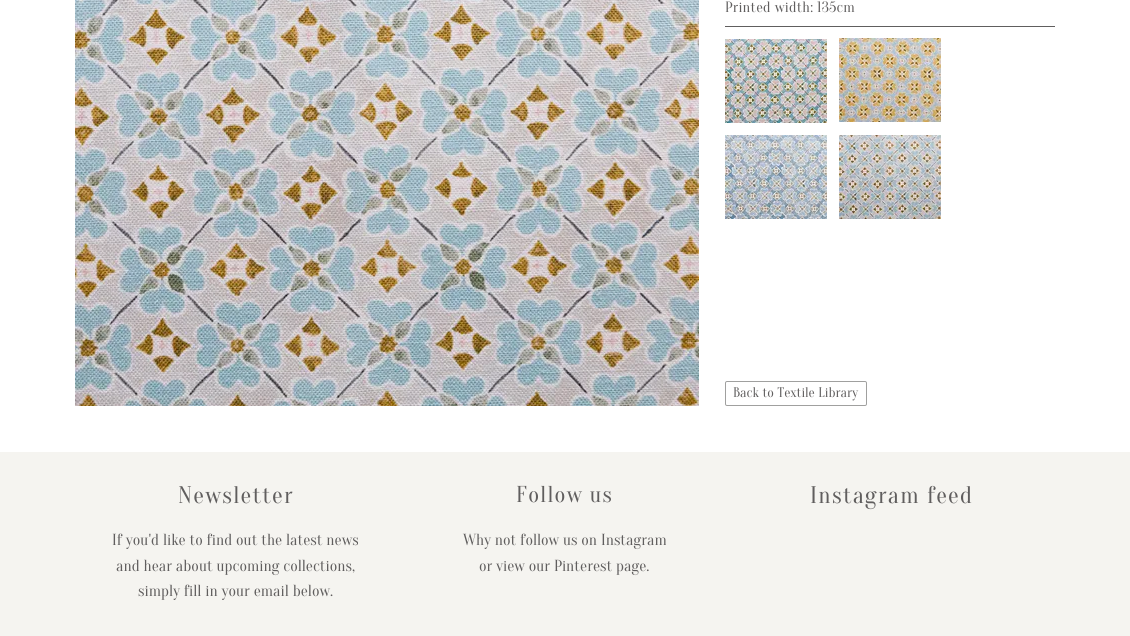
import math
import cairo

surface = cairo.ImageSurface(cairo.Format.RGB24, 1130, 636)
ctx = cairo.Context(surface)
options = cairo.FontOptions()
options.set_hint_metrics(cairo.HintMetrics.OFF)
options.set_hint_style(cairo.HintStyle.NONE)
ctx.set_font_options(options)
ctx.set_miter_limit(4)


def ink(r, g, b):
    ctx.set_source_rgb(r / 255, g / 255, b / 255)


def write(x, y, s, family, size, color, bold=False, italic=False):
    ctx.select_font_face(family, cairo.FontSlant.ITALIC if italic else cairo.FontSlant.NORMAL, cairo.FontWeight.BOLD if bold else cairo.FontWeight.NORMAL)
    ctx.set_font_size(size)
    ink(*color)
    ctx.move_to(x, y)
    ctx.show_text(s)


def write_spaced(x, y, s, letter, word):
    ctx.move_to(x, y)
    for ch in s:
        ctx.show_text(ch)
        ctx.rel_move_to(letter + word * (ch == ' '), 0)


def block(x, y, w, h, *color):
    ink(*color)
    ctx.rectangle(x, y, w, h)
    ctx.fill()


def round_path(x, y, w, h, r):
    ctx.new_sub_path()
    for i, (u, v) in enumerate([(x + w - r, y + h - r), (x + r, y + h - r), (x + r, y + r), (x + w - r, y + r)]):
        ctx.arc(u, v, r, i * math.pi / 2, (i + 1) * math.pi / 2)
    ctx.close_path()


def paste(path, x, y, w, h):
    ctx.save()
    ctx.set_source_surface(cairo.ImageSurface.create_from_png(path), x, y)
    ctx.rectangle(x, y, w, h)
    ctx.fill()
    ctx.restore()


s1 = dict(family="Oranienbaum", size=14, color=(96, 94, 94))
s2 = dict(family="Oranienbaum", size=16, color=(96, 94, 94))

ink(255, 255, 255)
ctx.paint()
paste("pic1.png", 75, 0, 624, 406)
ctx.select_font_face("Oranienbaum")
ctx.set_font_size(15)
ink(96, 94, 94)
write_spaced(725, 12, "Printed width: 135cm", 0.25, 0)
block(725, 26, 330, 1, 96, 94, 94)
paste("pic2.png", 725, 39, 102, 84)
paste("pic3.png", 839, 38, 102, 84)
paste("pic4.png", 725, 135, 102, 84)
paste("pic5.png", 839, 135, 102, 84)
round_path(725.5, 381.5, 141, 24, 1.5)
ink(160, 160, 159)
ctx.set_line_width(1)
ctx.stroke()
write(733, 397, "Back to Textile Library", **s1)
block(0, 452, 1130, 184, 245, 244, 240)
ctx.set_font_size(24)
ink(96, 94, 94)
write_spaced(178, 503, "Newsletter", 1.25, 0)
ctx.set_font_size(23)
write_spaced(516, 502, "Follow us", 1.25, 0)
ctx.set_font_size(24)
write_spaced(810, 503, "Instagram feed", 1.25, 0)
write(112, 545, "If you'd like to find out the latest news", **s2)
write(116, 571, "and hear about upcoming collections,", **s2)
write(138, 596, "simply fill in your email below.", **s2)
write(463, 545, "Why not follow us on Instagram", **s2)
write(479, 571, "or view our Pinterest page.", **s2)
surface.write_to_png("screenshot.png")
